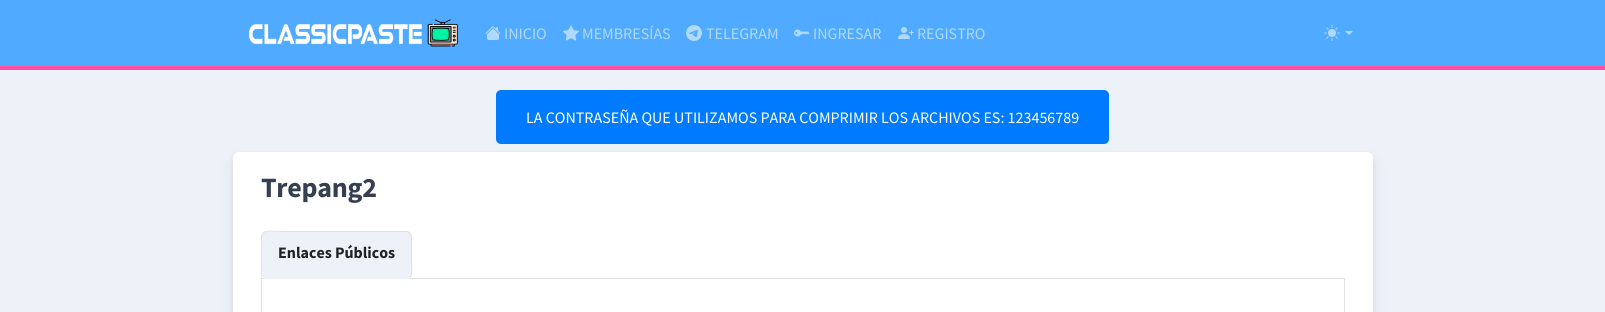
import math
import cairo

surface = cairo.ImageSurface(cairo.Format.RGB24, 1605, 312)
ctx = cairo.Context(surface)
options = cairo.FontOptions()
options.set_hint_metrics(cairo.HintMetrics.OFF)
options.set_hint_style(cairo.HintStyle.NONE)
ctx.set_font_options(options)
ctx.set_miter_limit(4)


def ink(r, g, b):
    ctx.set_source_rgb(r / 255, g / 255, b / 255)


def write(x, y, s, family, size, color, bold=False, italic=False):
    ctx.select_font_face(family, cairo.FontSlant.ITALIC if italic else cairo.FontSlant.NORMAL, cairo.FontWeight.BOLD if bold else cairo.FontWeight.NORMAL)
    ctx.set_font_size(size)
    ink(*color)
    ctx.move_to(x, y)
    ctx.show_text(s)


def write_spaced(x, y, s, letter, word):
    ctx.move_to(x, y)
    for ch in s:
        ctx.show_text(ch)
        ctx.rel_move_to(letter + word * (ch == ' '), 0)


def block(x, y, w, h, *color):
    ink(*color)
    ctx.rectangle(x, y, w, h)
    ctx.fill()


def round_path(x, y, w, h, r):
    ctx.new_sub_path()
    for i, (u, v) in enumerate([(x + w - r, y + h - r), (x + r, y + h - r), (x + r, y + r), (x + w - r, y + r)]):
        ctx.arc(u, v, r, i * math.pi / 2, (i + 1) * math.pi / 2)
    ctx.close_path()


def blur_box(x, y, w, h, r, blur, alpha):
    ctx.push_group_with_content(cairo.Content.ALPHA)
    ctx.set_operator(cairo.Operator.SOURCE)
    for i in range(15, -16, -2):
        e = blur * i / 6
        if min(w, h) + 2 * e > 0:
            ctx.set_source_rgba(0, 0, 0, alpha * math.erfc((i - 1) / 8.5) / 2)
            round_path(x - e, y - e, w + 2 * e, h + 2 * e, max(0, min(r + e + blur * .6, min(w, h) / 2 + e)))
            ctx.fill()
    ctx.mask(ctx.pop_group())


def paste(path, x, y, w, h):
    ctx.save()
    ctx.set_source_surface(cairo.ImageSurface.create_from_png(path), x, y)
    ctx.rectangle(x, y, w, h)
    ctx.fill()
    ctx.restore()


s1 = dict(family="Source Sans Pro", size=16, color=(176, 217, 255))
s2 = dict(family="Source Sans Pro", size=16, color=(255, 255, 255))
s3 = dict(family="Source Sans Pro", size=16, color=(34, 34, 34), bold=True)

ink(237, 242, 249)
ctx.paint()
block(0, 0, 1605, 66, 80, 170, 255)
block(0, 66, 1605, 4, 255, 80, 165)
paste("pic1.png", 248, 19, 210, 28)
paste("pic2.png", 485, 26, 16, 14)
write(504, 39, "INICIO", **s1)
paste("pic3.png", 563, 25, 16, 16)
write(582, 39, "MEMBRESÍAS", **s1)
paste("pic4.png", 686, 25, 16, 16)
write(706, 39, "TELEGRAM", **s1)
paste("pic5.png", 794, 29, 16, 8)
write(813, 39, "INGRESAR", **s1)
paste("pic6.png", 898, 27, 16, 12)
write(917, 39, "REGISTRO", **s1)
paste("pic7.png", 1324, 25, 16, 16)
ctx.new_path()
ctx.move_to(1345, 31)
ctx.line_to(1353, 31)
ctx.line_to(1349, 35)
ctx.close_path()
ctx.fill()
ink(0, 123, 255)
round_path(496, 90, 613, 54, 5)
ctx.fill()
write(526, 123, "LA CONTRASEÑA QUE UTILIZAMOS PARA COMPRIMIR LOS ARCHIVOS ES: 123456789", **s2)
ink(0, 0, 0)
blur_box(233, 155, 1140, 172, 6, 3, 0.07)
ink(65, 69, 88)
blur_box(233, 159, 1140, 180, 6, 7, 0.1)
ink(255, 255, 255)
round_path(233, 152, 1140, 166, 6)
ctx.fill()
ctx.select_font_face("Source Sans Pro", cairo.FontSlant.NORMAL, cairo.FontWeight.BOLD)
ctx.set_font_size(28)
ink(52, 63, 82)
write_spaced(261, 197, "Trepang2", -0.25, 0)
block(261, 278, 1084, 1, 222, 226, 230)
ink(237, 242, 249)
ctx.new_path()
ctx.move_to(267, 231)
ctx.line_to(406, 231)
ctx.curve_to(409.5, 231, 412, 233.5, 412, 237)
ctx.line_to(412, 274)
ctx.curve_to(412, 277, 410, 279, 407, 279)
ctx.line_to(266, 279)
ctx.curve_to(263, 279, 261, 277, 261, 274)
ctx.line_to(261, 237)
ctx.curve_to(261, 233.5, 263.5, 231, 267, 231)
ctx.close_path()
ctx.fill()
ctx.new_path()
ctx.move_to(263, 277)
ctx.curve_to(260.5, 275, 261.5, 270.5, 261.5, 268)
ctx.line_to(261.5, 255.5)
ctx.curve_to(261.5, 226, 258, 231.5, 290, 231.5)
ctx.line_to(406, 231.5)
ctx.curve_to(412.5, 231.5, 411.5, 239, 411.5, 243)
ctx.line_to(411.5, 261.5)
ctx.curve_to(411.5, 265, 413, 274.5, 410, 277)
ink(222, 226, 230)
ctx.set_line_width(1)
ctx.stroke()
write(278, 258, "Enlaces Públicos", **s3)
ink(222, 226, 230)
ctx.set_fill_rule(cairo.FillRule.EVEN_ODD)
ctx.new_path()
ctx.move_to(261, 279)
ctx.line_to(1345, 279)
ctx.line_to(1345, 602)
ctx.curve_to(1345, 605, 1342, 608, 1339, 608)
ctx.line_to(267, 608)
ctx.curve_to(264, 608, 261, 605, 261, 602)
ctx.close_path()
ctx.move_to(262, 279)
ctx.line_to(1344, 279)
ctx.line_to(1344, 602)
ctx.curve_to(1344, 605, 1342, 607, 1339, 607)
ctx.line_to(267, 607)
ctx.curve_to(264, 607, 262, 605, 262, 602)
ctx.close_path()
ctx.fill()
surface.write_to_png("screenshot.png")
